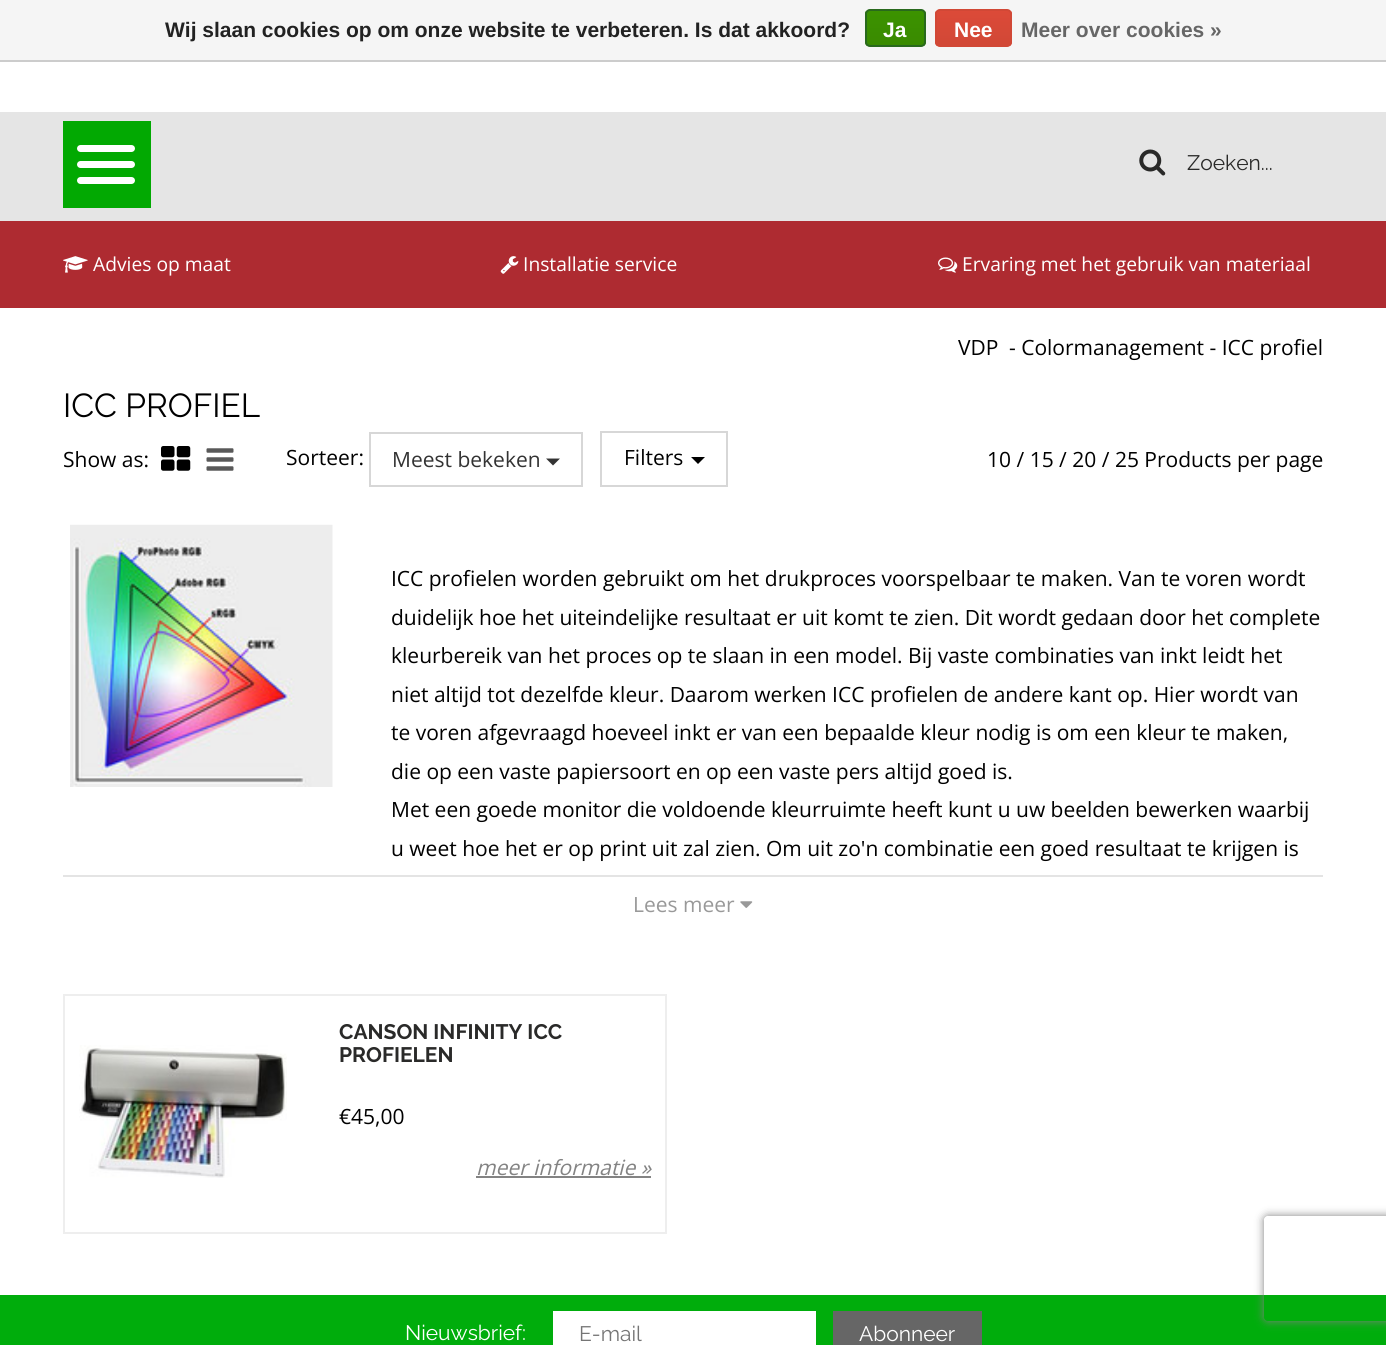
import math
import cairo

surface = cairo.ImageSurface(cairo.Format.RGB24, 1386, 1345)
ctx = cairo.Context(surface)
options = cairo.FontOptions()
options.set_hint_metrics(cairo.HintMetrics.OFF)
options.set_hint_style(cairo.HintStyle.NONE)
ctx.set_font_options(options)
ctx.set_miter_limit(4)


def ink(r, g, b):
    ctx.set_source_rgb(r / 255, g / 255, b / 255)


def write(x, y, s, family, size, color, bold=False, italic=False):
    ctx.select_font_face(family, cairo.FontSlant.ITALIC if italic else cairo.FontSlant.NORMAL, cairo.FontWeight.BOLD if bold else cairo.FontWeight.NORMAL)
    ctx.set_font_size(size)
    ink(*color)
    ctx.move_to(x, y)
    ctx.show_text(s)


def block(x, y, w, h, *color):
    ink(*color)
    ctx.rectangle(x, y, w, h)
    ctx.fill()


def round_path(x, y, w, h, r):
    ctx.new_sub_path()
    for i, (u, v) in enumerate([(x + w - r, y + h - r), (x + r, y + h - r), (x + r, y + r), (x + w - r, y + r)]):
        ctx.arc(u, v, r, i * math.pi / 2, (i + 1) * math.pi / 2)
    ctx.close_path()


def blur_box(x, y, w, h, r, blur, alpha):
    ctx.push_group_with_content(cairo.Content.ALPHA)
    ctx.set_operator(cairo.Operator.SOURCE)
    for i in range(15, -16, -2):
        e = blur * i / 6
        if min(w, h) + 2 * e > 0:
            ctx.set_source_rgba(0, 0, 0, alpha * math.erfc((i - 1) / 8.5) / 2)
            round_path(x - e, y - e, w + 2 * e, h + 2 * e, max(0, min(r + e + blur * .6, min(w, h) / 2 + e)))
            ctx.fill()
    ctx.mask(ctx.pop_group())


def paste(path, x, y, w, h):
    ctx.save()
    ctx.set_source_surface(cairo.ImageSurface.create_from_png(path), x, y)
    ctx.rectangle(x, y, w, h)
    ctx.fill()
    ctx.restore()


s1 = dict(family="Liberation Sans", size=21, color=(34, 34, 34), bold=True)
s2 = dict(family="Liberation Sans", size=21, color=(255, 255, 255), bold=True)
s3 = dict(family="Liberation Sans", size=21, color=(102, 102, 102), bold=True)
s4 = dict(family="Raleway", size=21, color=(42, 42, 41))
s5 = dict(family="Open Sans", size=19.25, color=(255, 255, 255))
s6 = dict(family="Open Sans", size=21, color=(0, 0, 0))
s7 = dict(family="Raleway", size=33.25, color=(0, 0, 0))
s8 = dict(family="Open Sans", size=21, color=(51, 51, 51))
s9 = dict(family="Open Sans", size=21, color=(153, 153, 153))
s10 = dict(family="Raleway", size=21, color=(42, 42, 41), bold=True)
s11 = dict(family="Open Sans", size=21, color=(131, 131, 131), italic=True)
s12 = dict(family="Raleway", size=21, color=(255, 255, 255))
s13 = dict(family="Raleway", size=21, color=(117, 117, 117))

ink(255, 255, 255)
ctx.paint()
block(0, 0, 1386, 60, 245, 245, 245)
block(0, 60, 1386, 2, 204, 204, 204)
write(165, 37, "Wij slaan cookies op om onze website te verbeteren. Is dat akkoord?", **s1)
ctx.save()
round_path(865, 9, 61, 38, 5)
ctx.clip()
gradient = cairo.LinearGradient(895, 10, 895, 46)
gradient.add_color_stop_rgba(0, 0.235, 0.576, 0, 1)
gradient.add_color_stop_rgba(1, 0.224, 0.541, 0, 1)
ctx.set_source(gradient)
ctx.rectangle(865, 11, 61, 35)
ctx.fill()
ctx.restore()
round_path(866, 10, 59, 36, 4)
ink(41, 105, 29)
ctx.stroke()
write(883, 37, "Ja", **s2)
ctx.save()
round_path(935, 9, 77, 38, 5)
ctx.clip()
gradient = cairo.LinearGradient(973, 10, 973, 46)
gradient.add_color_stop_rgba(0, 0.863, 0.29, 0.22, 1)
gradient.add_color_stop_rgba(1, 0.82, 0.282, 0.212, 1)
ctx.set_source(gradient)
ctx.rectangle(935, 11, 77, 35)
ctx.fill()
ctx.restore()
round_path(936, 10, 75, 36, 4)
ink(209, 72, 54)
ctx.stroke()
write(954, 37, "Nee", **s2)
write(1021, 37, "Meer over cookies »", **s3)
block(0, 112, 1386, 109, 229, 229, 229)
block(63, 121, 88, 87, 2, 169, 2)
ink(255, 255, 255)
round_path(77, 145, 58, 7, 3.5)
ctx.fill()
round_path(77, 161, 58, 7, 3.5)
ctx.fill()
round_path(77, 177, 58, 7, 3.5)
ctx.fill()
paste("pic1.png", 1139, 149, 27, 27)
write(1187, 170, "Zoeken...", **s4)
block(0, 221, 1386, 87, 174, 43, 49)
paste("pic2.png", 63, 256, 25, 17)
write(93, 271, "Advies op maat", **s5)
paste("pic3.png", 500, 256, 19, 18)
write(523, 271, "Installatie service", **s5)
paste("pic4.png", 938, 257, 20, 16)
write(962, 271, "Ervaring met het gebruik van materiaal", **s5)
write(958, 355, "VDP", **s6)
write(1009, 355, "- Colormanagement - ICC profiel", **s6)
write(63, 417, "ICC PROFIEL", **s7)
write(63, 467, "Show as:", **s6)
paste("pic5.png", 161, 446, 30, 25)
paste("pic6.png", 206, 448, 28, 23)
write(286, 465, "Sorteer:", **s6)
ctx.rectangle(370, 433, 212, 53)
ink(215, 215, 215)
ctx.stroke()
write(392, 467, "Meest bekeken", **s8)
ctx.new_path()
ctx.move_to(546, 458.5)
ctx.line_to(560, 458.5)
ctx.line_to(553, 465.5)
ctx.close_path()
ctx.fill()
ctx.rectangle(601, 432, 126, 54)
ink(215, 215, 215)
ctx.stroke()
write(624, 465, "Filters", **s6)
ctx.new_path()
ctx.move_to(691, 457)
ctx.line_to(705, 457)
ctx.line_to(698, 464)
ctx.close_path()
ctx.fill()
write(987, 467, "10 / 15 / 20 / 25 Products per page", **s6)
paste("pic7.png", 70, 524, 263, 263)
write(391, 586, "ICC profielen worden gebruikt om het drukproces voorspelbaar te maken. Van te voren wordt", **s6)
write(391, 625, "duidelijk hoe het uiteindelijke resultaat er uit komt te zien. Dit wordt gedaan door het complete", **s6)
write(391, 663, "kleurbereik van het proces op te slaan in een model. Bij vaste combinaties van inkt leidt het", **s6)
write(391, 702, "niet altijd tot dezelfde kleur. Daarom werken ICC profielen de andere kant op. Hier wordt van", **s6)
write(391, 740, "te voren afgevraagd hoeveel inkt er van een bepaalde kleur nodig is om een kleur te maken,", **s6)
write(391, 779, "die op een vaste papiersoort en op een vaste pers altijd goed is.", **s6)
write(391, 817, "Met een goede monitor die voldoende kleurruimte heeft kunt u uw beelden bewerken waarbij", **s6)
write(391, 856, "u weet hoe het er op print uit zal zien. Om uit zo'n combinatie een goed resultaat te krijgen is", **s6)
block(63, 875, 1260, 2, 228, 228, 228)
write(633, 912, "Lees meer", **s9)
paste("pic8.png", 740, 901, 13, 7)
ctx.rectangle(64, 995, 602, 238)
ink(238, 238, 238)
ctx.stroke()
paste("pic9.png", 79, 1045, 208, 133)
write(339, 1039, "CANSON INFINITY ICC", **s10)
write(339, 1062, "PROFIELEN", **s10)
write(339, 1124, "€45,00", **s6)
write(476, 1175, "meer informatie »", **s11)
block(476, 1176, 175, 2, 131, 131, 131)
block(0, 1295, 1386, 50, 0, 173, 12)
write(405, 1340, "Nieuwsbrief:", **s12)
block(553, 1311, 263, 34, 255, 255, 255)
write(579, 1341, "E-mail", **s13)
block(833, 1311, 149, 34, 102, 102, 102)
write(859, 1341, "Abonneer", **s12)
ctx.save()
ctx.set_fill_rule(cairo.FillRule.EVEN_ODD)
ctx.new_path()
ctx.move_to(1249, 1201)
ctx.line_to(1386, 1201)
ctx.line_to(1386, 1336)
ctx.line_to(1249, 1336)
ctx.close_path()
ctx.move_to(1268, 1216)
ctx.line_to(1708, 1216)
ctx.curve_to(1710, 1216, 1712, 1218, 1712, 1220)
ctx.line_to(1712, 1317)
ctx.curve_to(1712, 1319, 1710, 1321, 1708, 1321)
ctx.line_to(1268, 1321)
ctx.curve_to(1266, 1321, 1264, 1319, 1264, 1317)
ctx.line_to(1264, 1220)
ctx.curve_to(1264, 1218, 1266, 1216, 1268, 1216)
ctx.close_path()
ctx.clip()
ink(128, 128, 128)
blur_box(1264, 1216, 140, 105, 4, 4.5, 1)
ctx.restore()
surface.write_to_png("screenshot.png")
